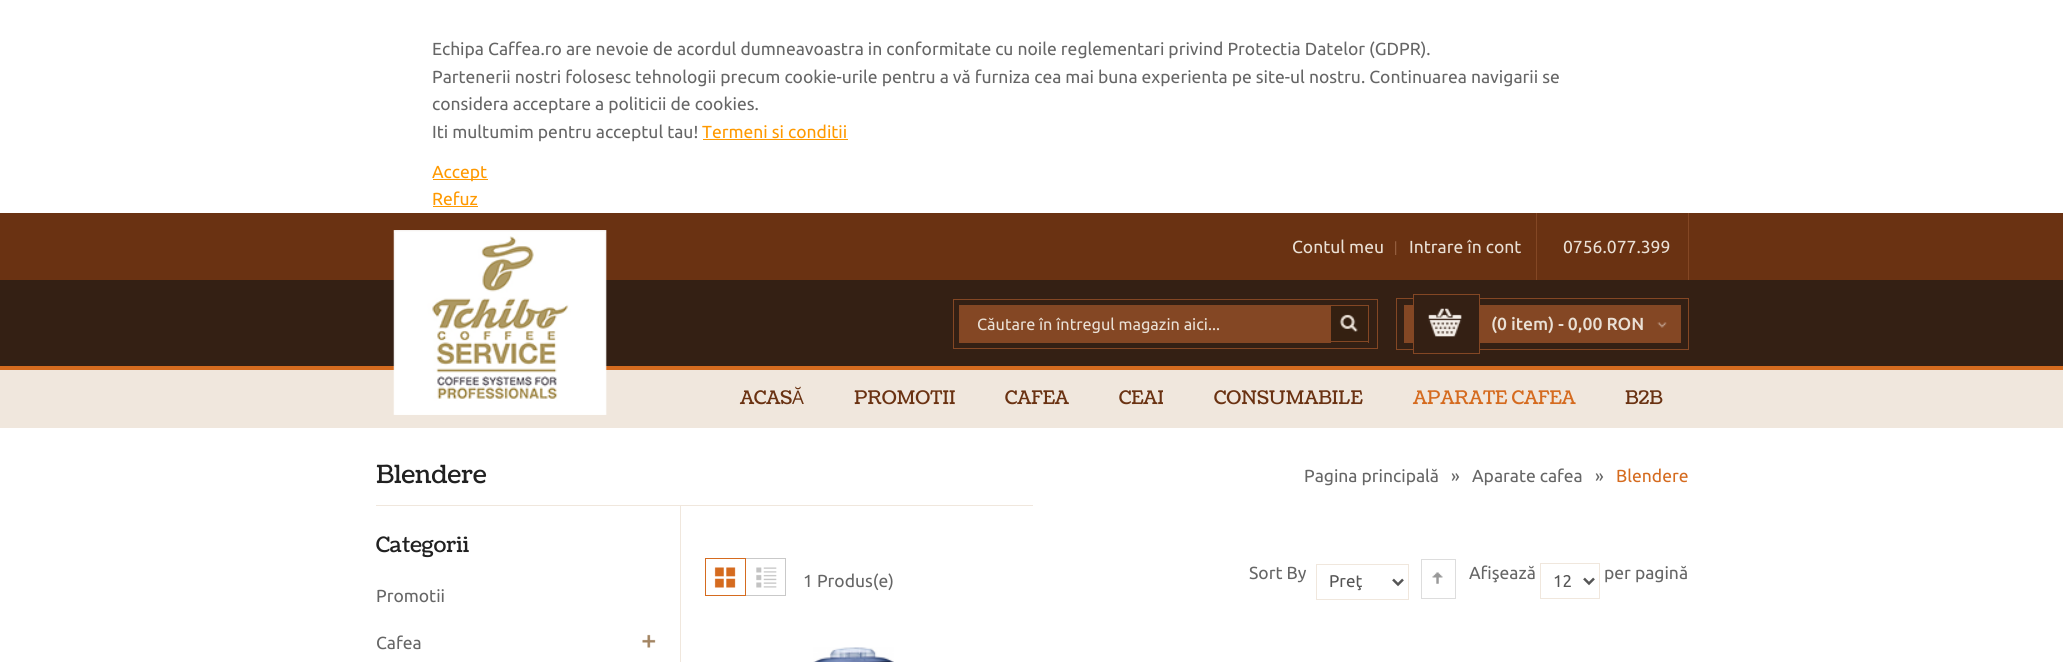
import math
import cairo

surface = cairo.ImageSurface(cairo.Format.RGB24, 2063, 662)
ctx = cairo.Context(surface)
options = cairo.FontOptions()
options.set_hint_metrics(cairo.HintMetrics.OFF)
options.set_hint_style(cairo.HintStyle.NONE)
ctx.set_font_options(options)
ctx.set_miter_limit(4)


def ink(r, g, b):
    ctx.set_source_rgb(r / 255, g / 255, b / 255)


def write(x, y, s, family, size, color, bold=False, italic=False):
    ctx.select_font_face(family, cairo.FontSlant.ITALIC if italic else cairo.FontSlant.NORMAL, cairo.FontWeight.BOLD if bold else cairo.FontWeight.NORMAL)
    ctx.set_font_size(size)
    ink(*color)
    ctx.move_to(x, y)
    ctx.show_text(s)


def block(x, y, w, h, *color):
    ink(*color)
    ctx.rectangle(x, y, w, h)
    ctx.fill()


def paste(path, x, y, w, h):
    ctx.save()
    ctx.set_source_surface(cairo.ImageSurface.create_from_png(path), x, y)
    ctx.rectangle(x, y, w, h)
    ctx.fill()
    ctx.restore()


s1 = dict(family="Ubuntu", size=17.5, color=(102, 102, 102))
s2 = dict(family="Ubuntu", size=17.5, color=(255, 153, 0))
s3 = dict(family="Ubuntu", size=17.5, color=(234, 224, 213))
s4 = dict(family="Ubuntu", size=16.25, color=(234, 224, 213))
s5 = dict(family="Ubuntu Medium", size=17.5, color=(234, 224, 213))
s6 = dict(family="Coustard", size=18.75, color=(106, 50, 18))
s7 = dict(family="Open Sans", size=18.75, color=(106, 50, 18))
s8 = dict(family="Coustard", size=18.75, color=(213, 107, 31))
s9 = dict(family="Coustard", size=25, color=(33, 33, 33))
s10 = dict(family="Ubuntu", size=17, color=(85, 85, 85))
s11 = dict(family="Ubuntu", size=17.5, color=(213, 107, 31))
s12 = dict(family="Coustard", size=21.25, color=(33, 33, 33))

ink(255, 255, 255)
ctx.paint()
write(432, 55, "Echipa Caffea.ro are nevoie de acordul dumneavoastra in conformitate cu noile reglementari privind Protectia Datelor (GDPR).", **s1)
write(432, 83, "Partenerii nostri folosesc tehnologii precum cookie-urile pentru a vă furniza cea mai buna experienta pe site-ul nostru. Continuarea navigarii se", **s1)
write(432, 110, "considera acceptare a politicii de cookies.", **s1)
write(432, 138, "Iti multumim pentru acceptul tau!", **s1)
write(702, 138, "Termeni si conditii", **s2)
block(703, 139, 145, 1, 255, 153, 0)
block(433, 179, 55, 1, 255, 153, 0)
write(432, 178, "Accept", **s2)
write(432, 205, "Refuz", **s2)
block(433, 206, 45, 1, 255, 153, 0)
block(0, 213, 2063, 67, 106, 50, 18)
block(1688, 213, 1, 67, 132, 71, 36)
block(1536, 213, 1, 67, 132, 71, 36)
paste("pic1.png", 1395, 241, 2, 14)
write(1292, 253, "Contul meu", **s3)
write(1409, 253, "Intrare în cont", **s3)
write(1563, 253, "0756.077.399", **s3)
block(0, 280, 2063, 86, 52, 32, 20)
block(0, 366, 2063, 4, 213, 107, 31)
block(0, 370, 2063, 58, 240, 231, 221)
paste("pic2.png", 393, 230, 214, 185)
ctx.rectangle(953.5, 299.5, 424, 49)
ink(132, 71, 36)
ctx.set_line_width(1)
ctx.stroke()
block(959, 305, 372, 38, 132, 71, 36)
write(977, 330, "Căutare în întregul magazin aici...", **s4)
block(1331, 306, 37, 37, 52, 32, 17)
paste("pic3.png", 1339, 314, 19, 18)
block(1331, 305, 38, 1, 132, 71, 36)
block(1368, 305, 1, 38, 132, 71, 36)
block(1331, 341, 38, 1, 132, 71, 36)
ctx.rectangle(1396.5, 298.5, 292, 51)
ctx.stroke()
block(1404, 305, 277, 38, 132, 71, 36)
block(1414, 298, 65, 52, 52, 32, 20)
paste("pic4.png", 1428, 308, 34, 29)
ctx.rectangle(1413.5, 294.5, 66, 59)
ink(132, 71, 36)
ctx.stroke()
write(1491, 330, "(0 item) - 0,00 RON", **s5)
paste("pic5.png", 1657, 322, 10, 6)
write(740, 404, "ACAS", **s6)
write(792, 404, "Ă", **s7)
write(854, 404, "PROMOTII", **s6)
write(1005, 404, "CAFEA", **s6)
write(1119, 404, "CEAI", **s6)
write(1214, 404, "CONSUMABILE", **s6)
write(1413, 404, "APARATE CAFEA", **s8)
write(1625, 404, "B2B", **s6)
block(376, 505, 657, 1, 240, 231, 221)
write(376, 483, "Blendere", **s9)
paste("pic6.png", 714, 567, 22, 21)
block(705, 558, 41, 1, 213, 107, 31)
block(705, 595, 41, 1, 213, 107, 31)
block(705, 558, 1, 38, 213, 107, 31)
paste("pic7.png", 756, 567, 21, 21)
block(745, 558, 41, 1, 201, 201, 201)
block(785, 558, 1, 38, 201, 201, 201)
block(745, 595, 41, 1, 201, 201, 201)
block(745, 558, 1, 38, 213, 107, 31)
write(803, 587, "1 Produs(e)", **s1)
write(1249, 579, "Sort By", **s1)
ctx.rectangle(1316.5, 564.5, 92, 35)
ink(240, 231, 221)
ctx.stroke()
ctx.new_path()
ctx.move_to(1393, 579.5)
ctx.line_to(1398, 584.5)
ctx.line_to(1403, 579.5)
ink(85, 85, 85)
ctx.set_line_width(2.5)
ctx.stroke()
write(1329, 587, "Preţ", **s10)
paste("pic8.png", 1432, 572, 11, 12)
ctx.rectangle(1421.5, 559.5, 34, 39)
ink(221, 221, 221)
ctx.set_line_width(1)
ctx.stroke()
write(1469, 579, "Afişează", **s1)
ctx.rectangle(1540.5, 563.5, 59, 35)
ink(240, 231, 221)
ctx.stroke()
ctx.new_path()
ctx.move_to(1584, 578.5)
ctx.line_to(1589, 583.5)
ctx.line_to(1594, 578.5)
ink(85, 85, 85)
ctx.set_line_width(2.5)
ctx.stroke()
write(1553, 587, "12", **s10)
write(1604, 579, "per pagină", **s1)
paste("pic9.png", 813, 647, 81, 15)
write(1304, 482, "Pagina principală", **s1)
write(1451, 482, "»", **s1)
write(1472, 482, "Aparate cafea", **s1)
write(1595, 482, "»", **s1)
write(1616, 482, "Blendere", **s11)
block(680, 506, 1, 156, 240, 231, 221)
write(376, 552, "Categorii", **s12)
write(376, 602, "Promotii", **s1)
write(376, 649, "Cafea", **s1)
paste("pic10.png", 642, 634, 14, 14)
surface.write_to_png("screenshot.png")
